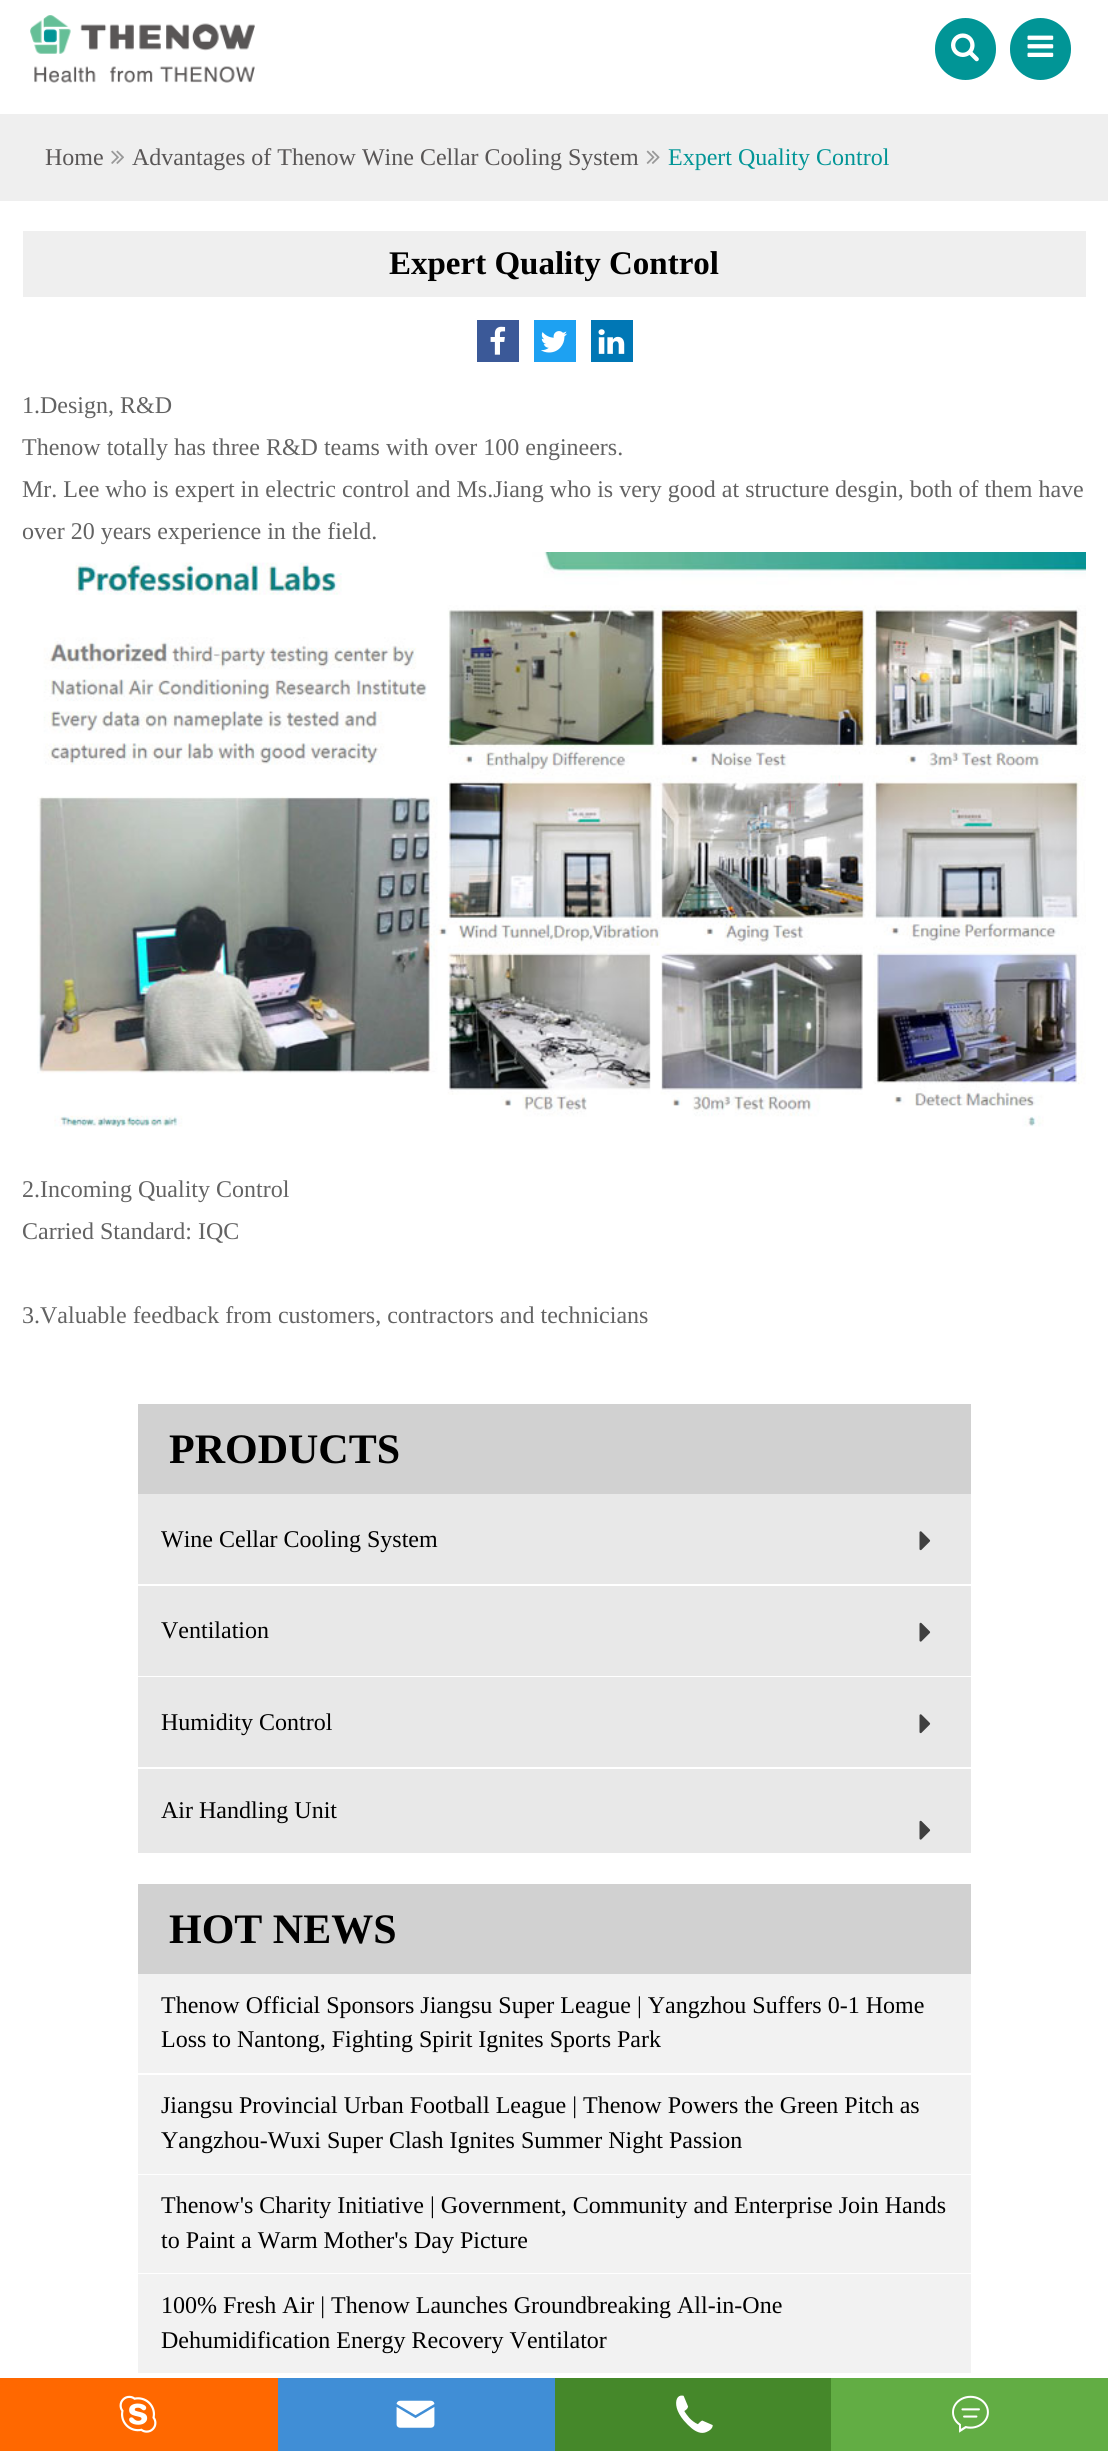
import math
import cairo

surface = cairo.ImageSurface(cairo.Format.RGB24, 1108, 2452)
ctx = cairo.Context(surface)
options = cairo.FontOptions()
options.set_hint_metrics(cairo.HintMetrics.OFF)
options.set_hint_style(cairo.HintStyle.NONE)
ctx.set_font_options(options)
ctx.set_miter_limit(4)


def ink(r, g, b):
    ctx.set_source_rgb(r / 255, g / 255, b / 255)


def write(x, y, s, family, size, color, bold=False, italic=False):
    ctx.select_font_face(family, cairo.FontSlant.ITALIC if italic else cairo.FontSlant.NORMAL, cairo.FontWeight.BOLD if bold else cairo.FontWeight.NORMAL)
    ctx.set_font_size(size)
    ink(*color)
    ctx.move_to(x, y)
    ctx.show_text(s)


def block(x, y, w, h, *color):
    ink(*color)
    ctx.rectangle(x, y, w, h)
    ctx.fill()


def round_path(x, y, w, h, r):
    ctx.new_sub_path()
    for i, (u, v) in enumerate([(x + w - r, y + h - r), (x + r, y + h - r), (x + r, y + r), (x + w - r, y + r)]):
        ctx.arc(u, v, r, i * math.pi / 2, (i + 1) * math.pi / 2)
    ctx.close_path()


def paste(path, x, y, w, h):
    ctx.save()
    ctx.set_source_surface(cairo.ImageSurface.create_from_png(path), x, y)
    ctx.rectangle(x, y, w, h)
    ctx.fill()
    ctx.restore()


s1 = dict(family="Liberation Serif", size=24, color=(89, 86, 86))
s2 = dict(family="Liberation Serif", size=24, color=(1, 149, 150))
s3 = dict(family="Liberation Serif", size=33, color=(0, 0, 0), bold=True)
s4 = dict(family="Liberation Serif", size=24, color=(99, 99, 99))
s5 = dict(family="Liberation Serif", size=42, color=(0, 0, 0), bold=True)
s6 = dict(family="Liberation Serif", size=24, color=(0, 0, 0))

ink(255, 255, 255)
ctx.paint()
paste("pic1.png", 30, 15, 225, 68)
ink(1, 149, 150)
round_path(935, 18, 61, 62, 30.5)
ctx.fill()
paste("pic2.png", 951, 33, 28, 29)
round_path(1010, 18, 61, 62, 30.5)
ctx.fill()
paste("pic3.png", 1027, 35, 27, 22)
block(0, 114, 1108, 87, 239, 239, 239)
write(45, 165, "Home", **s1)
paste("pic4.png", 111, 150, 13, 14)
write(132, 165, "Advantages of Thenow Wine Cellar Cooling System", **s1)
paste("pic5.png", 646, 150, 14, 14)
write(668, 165, "Expert Quality Control", **s2)
block(23, 231, 1063, 66, 239, 239, 239)
write(389, 274, "Expert Quality Control", **s3)
block(477, 320, 42, 42, 59, 89, 152)
paste("pic6.png", 490, 326, 16, 29)
block(534, 320, 42, 42, 29, 161, 242)
paste("pic7.png", 541, 331, 26, 22)
block(591, 320, 42, 42, 0, 119, 181)
paste("pic8.png", 598, 329, 27, 25)
write(22, 413, "1.Design, R&D", **s4)
write(22, 455, "Thenow totally has three R&D teams with over 100 engineers.", **s4)
write(22, 497, "Mr. Lee who is expert in electric control and Ms.Jiang who is very good at structure desgin, both of them have", **s4)
write(22, 539, "over 20 years experience in the field.", **s4)
paste("pic9.png", 37, 552, 1049, 575)
write(22, 1197, "2.Incoming Quality Control", **s4)
write(22, 1239, "Carried Standard: IQC", **s4)
write(22, 1323, "3.Valuable feedback from customers, contractors and technicians", **s4)
block(138, 1404, 833, 90, 209, 209, 209)
write(169, 1463, "PRODUCTS", **s5)
block(138, 1494, 833, 90, 232, 232, 232)
write(161, 1547, "Wine Cellar Cooling System", **s6)
paste("pic10.png", 919, 1531, 12, 20)
block(138, 1586, 833, 90, 232, 232, 232)
write(161, 1638, "Ventilation", **s6)
paste("pic11.png", 919, 1622, 12, 20)
block(138, 1677, 833, 90, 232, 232, 232)
write(161, 1730, "Humidity Control", **s6)
paste("pic10.png", 919, 1714, 12, 20)
block(138, 1769, 833, 84, 232, 232, 232)
write(161, 1818, "Air Handling Unit", **s6)
paste("pic11.png", 919, 1820, 12, 20)
block(138, 1884, 833, 90, 209, 209, 209)
write(169, 1943, "HOT NEWS", **s5)
block(138, 1974, 833, 99, 242, 242, 242)
write(161, 2013, "Thenow Official Sponsors Jiangsu Super League | Yangzhou Suffers 0-1 Home", **s6)
write(161, 2047, "Loss to Nantong, Fighting Spirit Ignites Sports Park", **s6)
block(138, 2075, 833, 99, 242, 242, 242)
write(161, 2113, "Jiangsu Provincial Urban Football League | Thenow Powers the Green Pitch as", **s6)
write(161, 2148, "Yangzhou-Wuxi Super Clash Ignites Summer Night Passion", **s6)
block(138, 2175, 833, 98, 242, 242, 242)
write(161, 2213, "Thenow's Charity Initiative | Government, Community and Enterprise Join Hands", **s6)
write(161, 2248, "to Paint a Warm Mother's Day Picture", **s6)
block(138, 2274, 833, 99, 242, 242, 242)
write(161, 2313, "100% Fresh Air | Thenow Launches Groundbreaking All-in-One", **s6)
write(161, 2348, "Dehumidification Energy Recovery Ventilator", **s6)
block(0, 2378, 278, 73, 255, 104, 0)
paste("pic12.png", 119, 2395, 38, 38)
block(278, 2378, 277, 73, 64, 142, 214)
paste("pic13.png", 396, 2400, 39, 28)
block(555, 2378, 276, 73, 69, 136, 42)
paste("pic14.png", 676, 2395, 37, 38)
block(831, 2378, 277, 73, 98, 173, 68)
paste("pic15.png", 952, 2395, 37, 38)
surface.write_to_png("screenshot.png")
